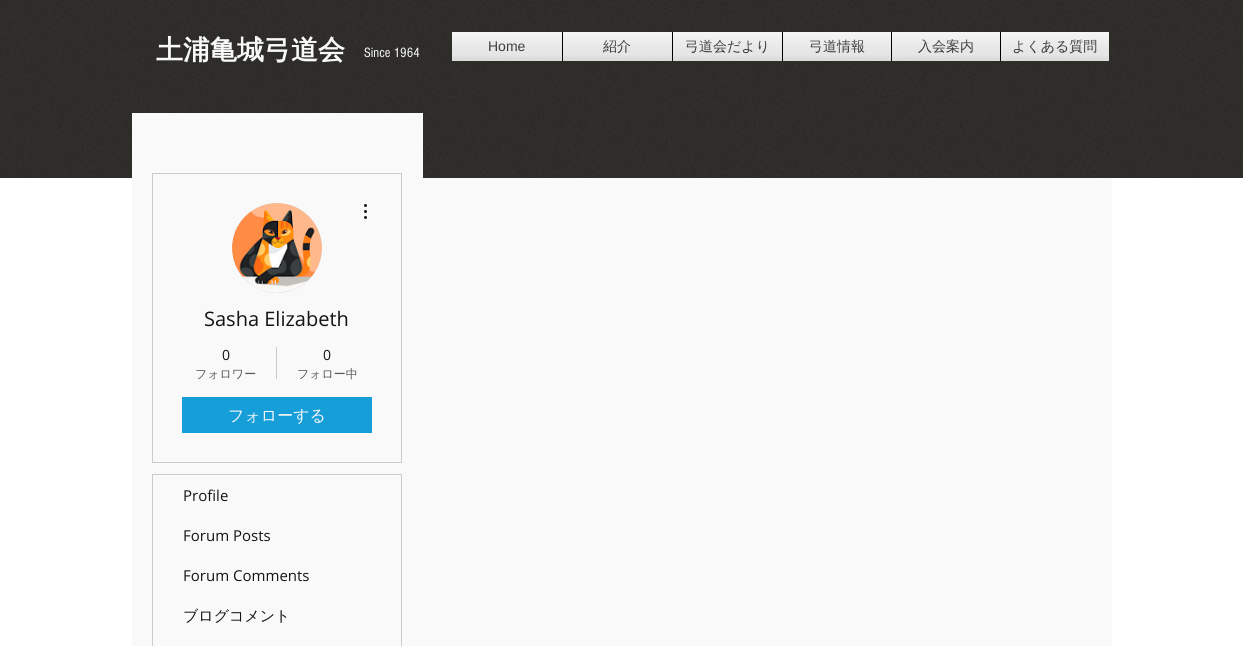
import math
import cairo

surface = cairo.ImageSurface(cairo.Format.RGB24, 1243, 646)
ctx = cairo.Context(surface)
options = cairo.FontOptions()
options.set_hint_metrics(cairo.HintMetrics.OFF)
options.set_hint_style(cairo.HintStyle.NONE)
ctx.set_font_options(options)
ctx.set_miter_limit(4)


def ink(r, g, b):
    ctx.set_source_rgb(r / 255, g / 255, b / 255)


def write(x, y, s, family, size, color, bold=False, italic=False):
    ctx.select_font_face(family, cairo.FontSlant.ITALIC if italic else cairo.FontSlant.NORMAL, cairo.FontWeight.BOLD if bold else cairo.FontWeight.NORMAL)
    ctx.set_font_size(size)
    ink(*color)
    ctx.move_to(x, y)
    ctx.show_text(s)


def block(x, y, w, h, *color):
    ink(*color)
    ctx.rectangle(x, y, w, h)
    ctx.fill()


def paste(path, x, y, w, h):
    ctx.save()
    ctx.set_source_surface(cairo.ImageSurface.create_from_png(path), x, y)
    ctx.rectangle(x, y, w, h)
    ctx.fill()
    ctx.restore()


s1 = dict(family="WenQuanYi Zen Hei", size=27, color=(249, 249, 249), bold=True)
s2 = dict(family="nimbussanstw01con", size=14, color=(249, 249, 249))
s3 = dict(family="Liberation Sans", size=14, color=(0, 0, 0))
s4 = dict(family="WenQuanYi Zen Hei Medium", size=14, color=(0, 0, 0))
s5 = dict(family="Open Sans", size=20, color=(20, 20, 20))
s6 = dict(family="Open Sans", size=14, color=(20, 20, 20))
s7 = dict(family="WenQuanYi Zen Hei Medium", size=12, color=(89, 89, 89))
s8 = dict(family="WenQuanYi Zen Hei Medium", size=16, color=(249, 249, 249))
s9 = dict(family="Open Sans", size=15, color=(20, 20, 20))
s10 = dict(family="WenQuanYi Zen Hei Medium", size=15, color=(20, 20, 20))

ink(255, 255, 255)
ctx.paint()
block(0, 0, 1243, 178, 45, 44, 40)
paste("pic1.png", 0, 0, 1243, 178)
write(156, 59, "土浦亀城弓道会", **s1)
write(364, 57, "Since 1964", **s2)
block(452, 32, 110, 29, 255, 255, 255)
write(488, 51, "Home", **s3)
paste("pic2.png", 489, 41, 36, 11)
paste("pic3.png", 452, 32, 110, 29)
block(563, 32, 109, 29, 255, 255, 255)
block(562, 32, 1, 29, 0, 0, 0)
write(603, 51, "紹介", **s4)
paste("pic4.png", 603, 39, 28, 14)
paste("pic5.png", 563, 32, 109, 29)
block(673, 32, 109, 29, 255, 255, 255)
block(672, 32, 1, 29, 0, 0, 0)
write(685, 51, "弓道会だより", **s4)
paste("pic6.png", 685, 39, 81, 15)
paste("pic7.png", 673, 32, 109, 29)
block(783, 32, 108, 29, 255, 255, 255)
block(782, 32, 1, 29, 0, 0, 0)
write(809, 51, "弓道情報", **s4)
paste("pic8.png", 809, 39, 55, 14)
paste("pic9.png", 783, 32, 108, 29)
block(892, 32, 108, 29, 255, 255, 255)
block(891, 32, 1, 29, 0, 0, 0)
write(918, 51, "入会案内", **s4)
paste("pic10.png", 917, 39, 56, 14)
paste("pic11.png", 892, 32, 108, 29)
block(1001, 32, 108, 29, 255, 255, 255)
block(1000, 32, 1, 29, 0, 0, 0)
write(1012, 51, "よくある質問", **s4)
paste("pic12.png", 1013, 39, 84, 15)
paste("pic13.png", 1001, 32, 108, 29)
block(132, 113, 291, 533, 249, 249, 249)
ctx.rectangle(152.5, 173.5, 249, 289)
ink(203, 203, 203)
ctx.set_line_width(1)
ctx.stroke()
ink(216, 216, 216)
ctx.arc(277, 248, 45, 0, 2 * math.pi)
ctx.fill()
paste("pic14.png", 232, 203, 90, 90)
paste("pic15.png", 364, 204, 3, 15)
write(204, 326, "Sasha Elizabeth", **s5)
write(222, 360, "0", **s6)
write(195, 378, "フォロワー", **s7)
block(276, 347, 1, 32, 203, 203, 203)
write(323, 360, "0", **s6)
write(297, 378, "フォロー中", **s7)
block(182, 397, 190, 36, 21, 158, 216)
write(228, 421, "フォローする", **s8)
ctx.rectangle(152.5, 474.5, 249, 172)
ink(203, 203, 203)
ctx.stroke()
write(183, 501, "Profile", **s9)
write(183, 541, "Forum Posts", **s9)
write(183, 581, "Forum Comments", **s9)
write(183, 621, "ブログコメント", **s10)
block(423, 178, 689, 468, 249, 249, 249)
surface.write_to_png("screenshot.png")
